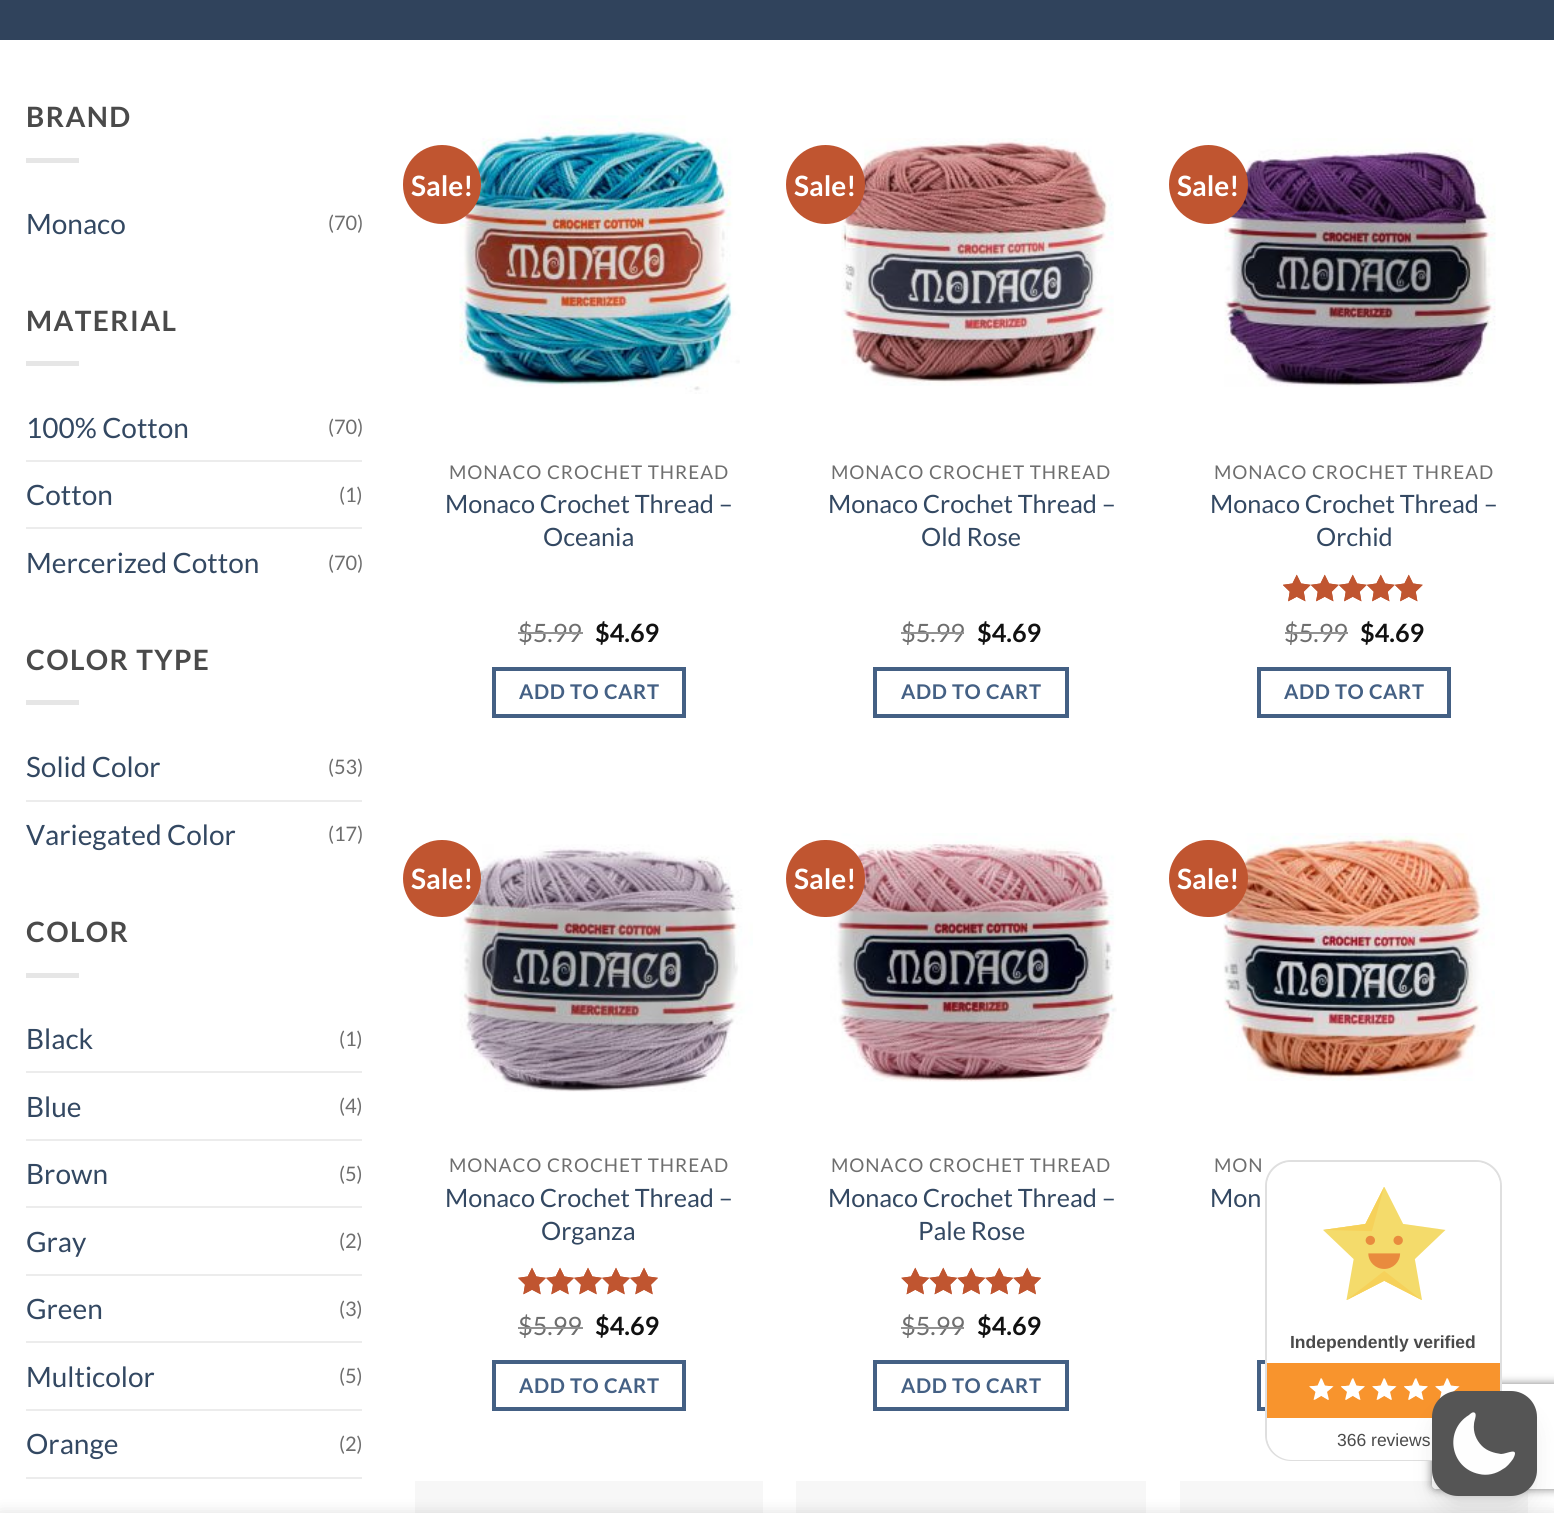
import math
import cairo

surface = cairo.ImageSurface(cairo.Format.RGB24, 1554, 1513)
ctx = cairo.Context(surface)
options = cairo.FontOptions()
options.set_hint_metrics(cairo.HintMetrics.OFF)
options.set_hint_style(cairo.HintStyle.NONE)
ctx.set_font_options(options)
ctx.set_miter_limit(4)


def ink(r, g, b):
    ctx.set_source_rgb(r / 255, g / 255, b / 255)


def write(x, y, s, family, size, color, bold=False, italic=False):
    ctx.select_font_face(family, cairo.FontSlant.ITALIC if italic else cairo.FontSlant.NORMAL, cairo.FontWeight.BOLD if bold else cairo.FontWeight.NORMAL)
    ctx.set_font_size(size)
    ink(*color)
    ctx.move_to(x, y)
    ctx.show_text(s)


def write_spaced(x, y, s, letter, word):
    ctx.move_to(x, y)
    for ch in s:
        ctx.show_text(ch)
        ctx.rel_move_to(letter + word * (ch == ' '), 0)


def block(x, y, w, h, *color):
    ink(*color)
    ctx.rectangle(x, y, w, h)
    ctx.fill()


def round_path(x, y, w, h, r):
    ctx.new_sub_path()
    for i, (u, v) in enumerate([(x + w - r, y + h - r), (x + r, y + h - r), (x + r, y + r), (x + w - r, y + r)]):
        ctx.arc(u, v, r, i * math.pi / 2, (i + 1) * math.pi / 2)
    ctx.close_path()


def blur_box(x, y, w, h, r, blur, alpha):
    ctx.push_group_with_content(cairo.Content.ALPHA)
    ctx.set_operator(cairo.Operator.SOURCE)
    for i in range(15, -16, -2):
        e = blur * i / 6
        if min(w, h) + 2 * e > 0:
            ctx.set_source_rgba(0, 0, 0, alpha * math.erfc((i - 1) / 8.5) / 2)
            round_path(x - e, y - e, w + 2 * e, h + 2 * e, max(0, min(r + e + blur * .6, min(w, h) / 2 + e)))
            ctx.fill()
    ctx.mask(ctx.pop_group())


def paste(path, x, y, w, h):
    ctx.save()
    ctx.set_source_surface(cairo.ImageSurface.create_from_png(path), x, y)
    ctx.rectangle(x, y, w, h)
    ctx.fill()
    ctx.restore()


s1 = dict(family="Lato", size=28, color=(51, 72, 98))
s2 = dict(family="Lato", size=20, color=(110, 110, 110))
s3 = dict(family="Lato", size=28, color=(255, 255, 255), bold=True)
s4 = dict(family="Lato", size=25.25, color=(51, 72, 98))
s5 = dict(family="Lato", size=25.25, color=(110, 110, 110))
s6 = dict(family="Lato", size=25.25, color=(17, 17, 17), bold=True)
s7 = dict(family="Liberation Sans", size=17.5, color=(74, 74, 74), bold=True)
s8 = dict(family="Liberation Sans", size=17.5, color=(74, 74, 74))

ink(255, 255, 255)
ctx.paint()
block(0, 0, 1554, 40, 48, 67, 92)
ctx.select_font_face("Lato", cairo.FontSlant.NORMAL, cairo.FontWeight.BOLD)
ctx.set_font_size(28)
ink(74, 74, 74)
write_spaced(26, 127, "BRAND", 1.4, 0)
block(26, 158, 53, 5, 230, 230, 230)
write(26, 234, "Monaco", **s1)
write(328, 230, "(70)", **s2)
ctx.select_font_face("Lato", cairo.FontSlant.NORMAL, cairo.FontWeight.BOLD)
ctx.set_font_size(28)
ink(74, 74, 74)
write_spaced(26, 331, "MATERIAL", 1.4, 0)
block(26, 361, 53, 5, 230, 230, 230)
write(26, 438, "100% Cotton", **s1)
write(328, 434, "(70)", **s2)
block(26, 460, 336, 2, 236, 236, 236)
write(26, 505, "Cotton", **s1)
write(339, 502, "(1)", **s2)
block(26, 527, 336, 2, 236, 236, 236)
write(26, 573, "Mercerized Cotton", **s1)
write(328, 570, "(70)", **s2)
ctx.select_font_face("Lato", cairo.FontSlant.NORMAL, cairo.FontWeight.BOLD)
ctx.set_font_size(28)
ink(74, 74, 74)
write_spaced(26, 670, "COLOR TYPE", 1.4, 0)
block(26, 700, 53, 5, 230, 230, 230)
write(26, 777, "Solid Color", **s1)
write(328, 774, "(53)", **s2)
block(26, 800, 336, 2, 236, 236, 236)
write(26, 845, "Variegated Color", **s1)
write(328, 841, "(17)", **s2)
ctx.select_font_face("Lato", cairo.FontSlant.NORMAL, cairo.FontWeight.BOLD)
ctx.set_font_size(28)
ink(74, 74, 74)
write_spaced(26, 942, "COLOR", 1.4, 0)
block(26, 973, 53, 5, 230, 230, 230)
write(26, 1049, "Black", **s1)
write(339, 1046, "(1)", **s2)
block(26, 1071, 336, 2, 236, 236, 236)
write(26, 1117, "Blue", **s1)
write(339, 1113, "(4)", **s2)
block(26, 1139, 336, 2, 236, 236, 236)
write(26, 1184, "Brown", **s1)
write(339, 1181, "(5)", **s2)
block(26, 1206, 336, 2, 236, 236, 236)
write(26, 1252, "Gray", **s1)
write(339, 1248, "(2)", **s2)
block(26, 1274, 336, 2, 236, 236, 236)
write(26, 1319, "Green", **s1)
write(339, 1316, "(3)", **s2)
block(26, 1341, 336, 2, 236, 236, 236)
write(26, 1387, "Multicolor", **s1)
write(339, 1383, "(5)", **s2)
block(26, 1409, 336, 2, 236, 236, 236)
write(26, 1454, "Orange", **s1)
write(339, 1451, "(2)", **s2)
block(26, 1477, 336, 2, 236, 236, 236)
paste("pic1.png", 459, 115, 281, 279)
ink(192, 85, 48)
round_path(403, 145, 78, 79, 39)
ctx.fill()
write(411, 196, "Sale!", **s3)
ctx.select_font_face("Lato")
ctx.set_font_size(18.9)
ink(110, 110, 110)
write_spaced(449, 479, "MONACO CROCHET THREAD", 0.95, 0)
write(445, 513, "Monaco Crochet Thread –", **s4)
write(543, 546, "Oceania", **s4)
write(518, 642, "$5.99", **s5)
block(518, 632, 65, 2, 146, 146, 146)
write(595, 642, "$4.69", **s6)
ctx.rectangle(494, 669, 190, 47)
ink(68, 96, 132)
ctx.set_line_width(4)
ctx.stroke()
ctx.set_font_size(20.25)
write_spaced(519, 699, "ADD TO CART", 0.6, 0)
paste("pic2.png", 841, 138, 273, 248)
ink(192, 85, 48)
ctx.arc(825.5, 184.5, 39.5, 0, 2 * math.pi)
ctx.fill()
write(794, 196, "Sale!", **s3)
ctx.select_font_face("Lato")
ctx.set_font_size(18.9)
ink(110, 110, 110)
write_spaced(831, 479, "MONACO CROCHET THREAD", 0.95, 0)
write(828, 513, "Monaco Crochet Thread –", **s4)
write(921, 546, "Old Rose", **s4)
write(901, 642, "$5.99", **s5)
block(901, 632, 63, 2, 146, 146, 146)
write(977, 642, "$4.69", **s6)
ctx.rectangle(875, 669, 192, 47)
ink(68, 96, 132)
ctx.stroke()
ctx.set_font_size(20.25)
write_spaced(901, 699, "ADD TO CART", 0.6, 0)
paste("pic3.png", 1224, 138, 272, 249)
ink(192, 85, 48)
ctx.arc(1208.5, 184.5, 39.5, 0, 2 * math.pi)
ctx.fill()
write(1177, 196, "Sale!", **s3)
ctx.select_font_face("Lato")
ctx.set_font_size(18.9)
ink(110, 110, 110)
write_spaced(1214, 479, "MONACO CROCHET THREAD", 0.95, 0)
write(1210, 513, "Monaco Crochet Thread –", **s4)
write(1316, 546, "Orchid", **s4)
paste("pic4.png", 1283, 574, 140, 28)
paste("pic5.png", 1283, 574, 140, 28)
write(1284, 642, "$5.99", **s5)
block(1285, 632, 63, 2, 146, 146, 146)
write(1360, 642, "$4.69", **s6)
ctx.rectangle(1259, 669, 190, 47)
ink(68, 96, 132)
ctx.stroke()
ctx.set_font_size(20.25)
write_spaced(1284, 699, "ADD TO CART", 0.6, 0)
paste("pic6.png", 459, 844, 294, 248)
ink(192, 85, 48)
round_path(403, 840, 78, 77, 38.5)
ctx.fill()
write(411, 889, "Sale!", **s3)
ctx.select_font_face("Lato")
ctx.set_font_size(18.9)
ink(110, 110, 110)
write_spaced(449, 1172, "MONACO CROCHET THREAD", 0.95, 0)
write(445, 1207, "Monaco Crochet Thread –", **s4)
write(541, 1240, "Organza", **s4)
paste("pic7.png", 518, 1267, 140, 28)
paste("pic8.png", 518, 1267, 140, 28)
write(518, 1335, "$5.99", **s5)
block(518, 1327, 65, 2, 146, 146, 146)
write(595, 1335, "$4.69", **s6)
ctx.rectangle(494, 1362, 190, 47)
ink(68, 96, 132)
ctx.stroke()
ctx.set_font_size(20.25)
write_spaced(519, 1393, "ADD TO CART", 0.6, 0)
paste("pic9.png", 830, 833, 287, 249)
ink(192, 85, 48)
round_path(786, 840, 79, 77, 38.5)
ctx.fill()
write(794, 889, "Sale!", **s3)
ctx.select_font_face("Lato")
ctx.set_font_size(18.9)
ink(110, 110, 110)
write_spaced(831, 1172, "MONACO CROCHET THREAD", 0.95, 0)
write(828, 1207, "Monaco Crochet Thread –", **s4)
write(918, 1240, "Pale Rose", **s4)
paste("pic10.png", 901, 1267, 140, 28)
paste("pic11.png", 901, 1267, 140, 28)
write(901, 1335, "$5.99", **s5)
block(901, 1327, 63, 2, 146, 146, 146)
write(977, 1335, "$4.69", **s6)
ctx.rectangle(875, 1362, 192, 47)
ink(68, 96, 132)
ctx.stroke()
ctx.set_font_size(20.25)
write_spaced(901, 1393, "ADD TO CART", 0.6, 0)
paste("pic12.png", 1223, 833, 272, 248)
ink(192, 85, 48)
round_path(1169, 840, 79, 77, 38.5)
ctx.fill()
write(1177, 889, "Sale!", **s3)
ctx.select_font_face("Lato")
ctx.set_font_size(18.9)
ink(110, 110, 110)
write_spaced(1214, 1172, "MON", 0.95, 0)
write(1210, 1207, "Mon", **s4)
ctx.rectangle(1259, 1362, 190, 47)
ink(68, 96, 132)
ctx.stroke()
block(415, 1481, 348, 32, 247, 247, 247)
block(796, 1481, 350, 32, 247, 247, 247)
block(1180, 1481, 348, 32, 247, 247, 247)
ctx.save()
ctx.set_fill_rule(cairo.FillRule.EVEN_ODD)
ctx.new_path()
ctx.move_to(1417, 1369)
ctx.line_to(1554, 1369)
ctx.line_to(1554, 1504)
ctx.line_to(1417, 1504)
ctx.close_path()
ctx.move_to(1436, 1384)
ctx.line_to(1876, 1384)
ctx.curve_to(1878, 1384, 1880, 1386, 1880, 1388)
ctx.line_to(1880, 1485)
ctx.curve_to(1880, 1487, 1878, 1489, 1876, 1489)
ctx.line_to(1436, 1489)
ctx.curve_to(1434, 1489, 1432, 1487, 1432, 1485)
ctx.line_to(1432, 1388)
ctx.curve_to(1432, 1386, 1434, 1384, 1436, 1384)
ctx.close_path()
ctx.clip()
ink(128, 128, 128)
blur_box(1432, 1384, 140, 105, 4, 4.5, 1)
ctx.restore()
round_path(1266, 1161, 235, 299, 25)
ink(223, 223, 223)
ctx.set_line_width(2)
ctx.stroke()
ink(255, 255, 255)
ctx.new_path()
ctx.move_to(1292, 1162)
ctx.line_to(1475, 1162)
ctx.curve_to(1489, 1162, 1500, 1173, 1500, 1187)
ctx.line_to(1500, 1363)
ctx.line_to(1267, 1363)
ctx.line_to(1267, 1187)
ctx.curve_to(1267, 1173, 1278, 1162, 1292, 1162)
ctx.close_path()
ctx.fill()
block(1267, 1363, 233, 55, 248, 148, 45)
ink(255, 255, 255)
ctx.new_path()
ctx.move_to(1267, 1418)
ctx.line_to(1500, 1418)
ctx.line_to(1500, 1435)
ctx.curve_to(1500, 1449, 1489, 1460, 1475, 1460)
ctx.line_to(1292, 1460)
ctx.curve_to(1278, 1460, 1267, 1449, 1267, 1435)
ctx.close_path()
ctx.fill()
paste("pic13.png", 1323, 1187, 123, 113)
write(1290, 1348, "Independently verified", **s7)
paste("pic14.png", 1309, 1378, 25, 22)
paste("pic15.png", 1309, 1378, 24, 22)
paste("pic16.png", 1341, 1378, 24, 22)
paste("pic17.png", 1341, 1378, 23, 22)
paste("pic14.png", 1372, 1378, 25, 22)
paste("pic15.png", 1372, 1378, 24, 22)
paste("pic16.png", 1404, 1378, 24, 22)
paste("pic17.png", 1404, 1378, 23, 22)
paste("pic18.png", 1435, 1378, 25, 20)
paste("pic19.png", 1435, 1378, 21, 22)
write(1337, 1446, "366 reviews", **s8)
ink(0, 0, 0)
blur_box(1439, 1405, 91, 91, 19, 5, 0.1)
blur_box(1437, 1414, 94, 95, 21, 13, 0.1)
blur_box(0, 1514, 1554, 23, 0, 8, 0.14)
ink(85, 85, 85)
round_path(1432, 1391, 105, 105, 26)
ctx.fill()
ink(254, 254, 254)
ctx.set_fill_rule(cairo.FillRule.EVEN_ODD)
ctx.new_path()
ctx.move_to(1475, 1413)
ctx.curve_to(1477, 1415, 1474, 1421, 1474, 1424)
ctx.curve_to(1473, 1432, 1476, 1440, 1482, 1446)
ctx.curve_to(1487, 1451, 1494, 1453, 1501, 1454)
ctx.curve_to(1507, 1454, 1520, 1446, 1513, 1459)
ctx.curve_to(1510, 1463, 1507, 1467, 1503, 1469)
ctx.curve_to(1496, 1474, 1487, 1476, 1479, 1474)
ctx.curve_to(1450, 1468, 1444, 1430, 1469, 1415)
ctx.curve_to(1470, 1414, 1473, 1411, 1475, 1413)
ctx.close_path()
ctx.fill()
surface.write_to_png("screenshot.png")
